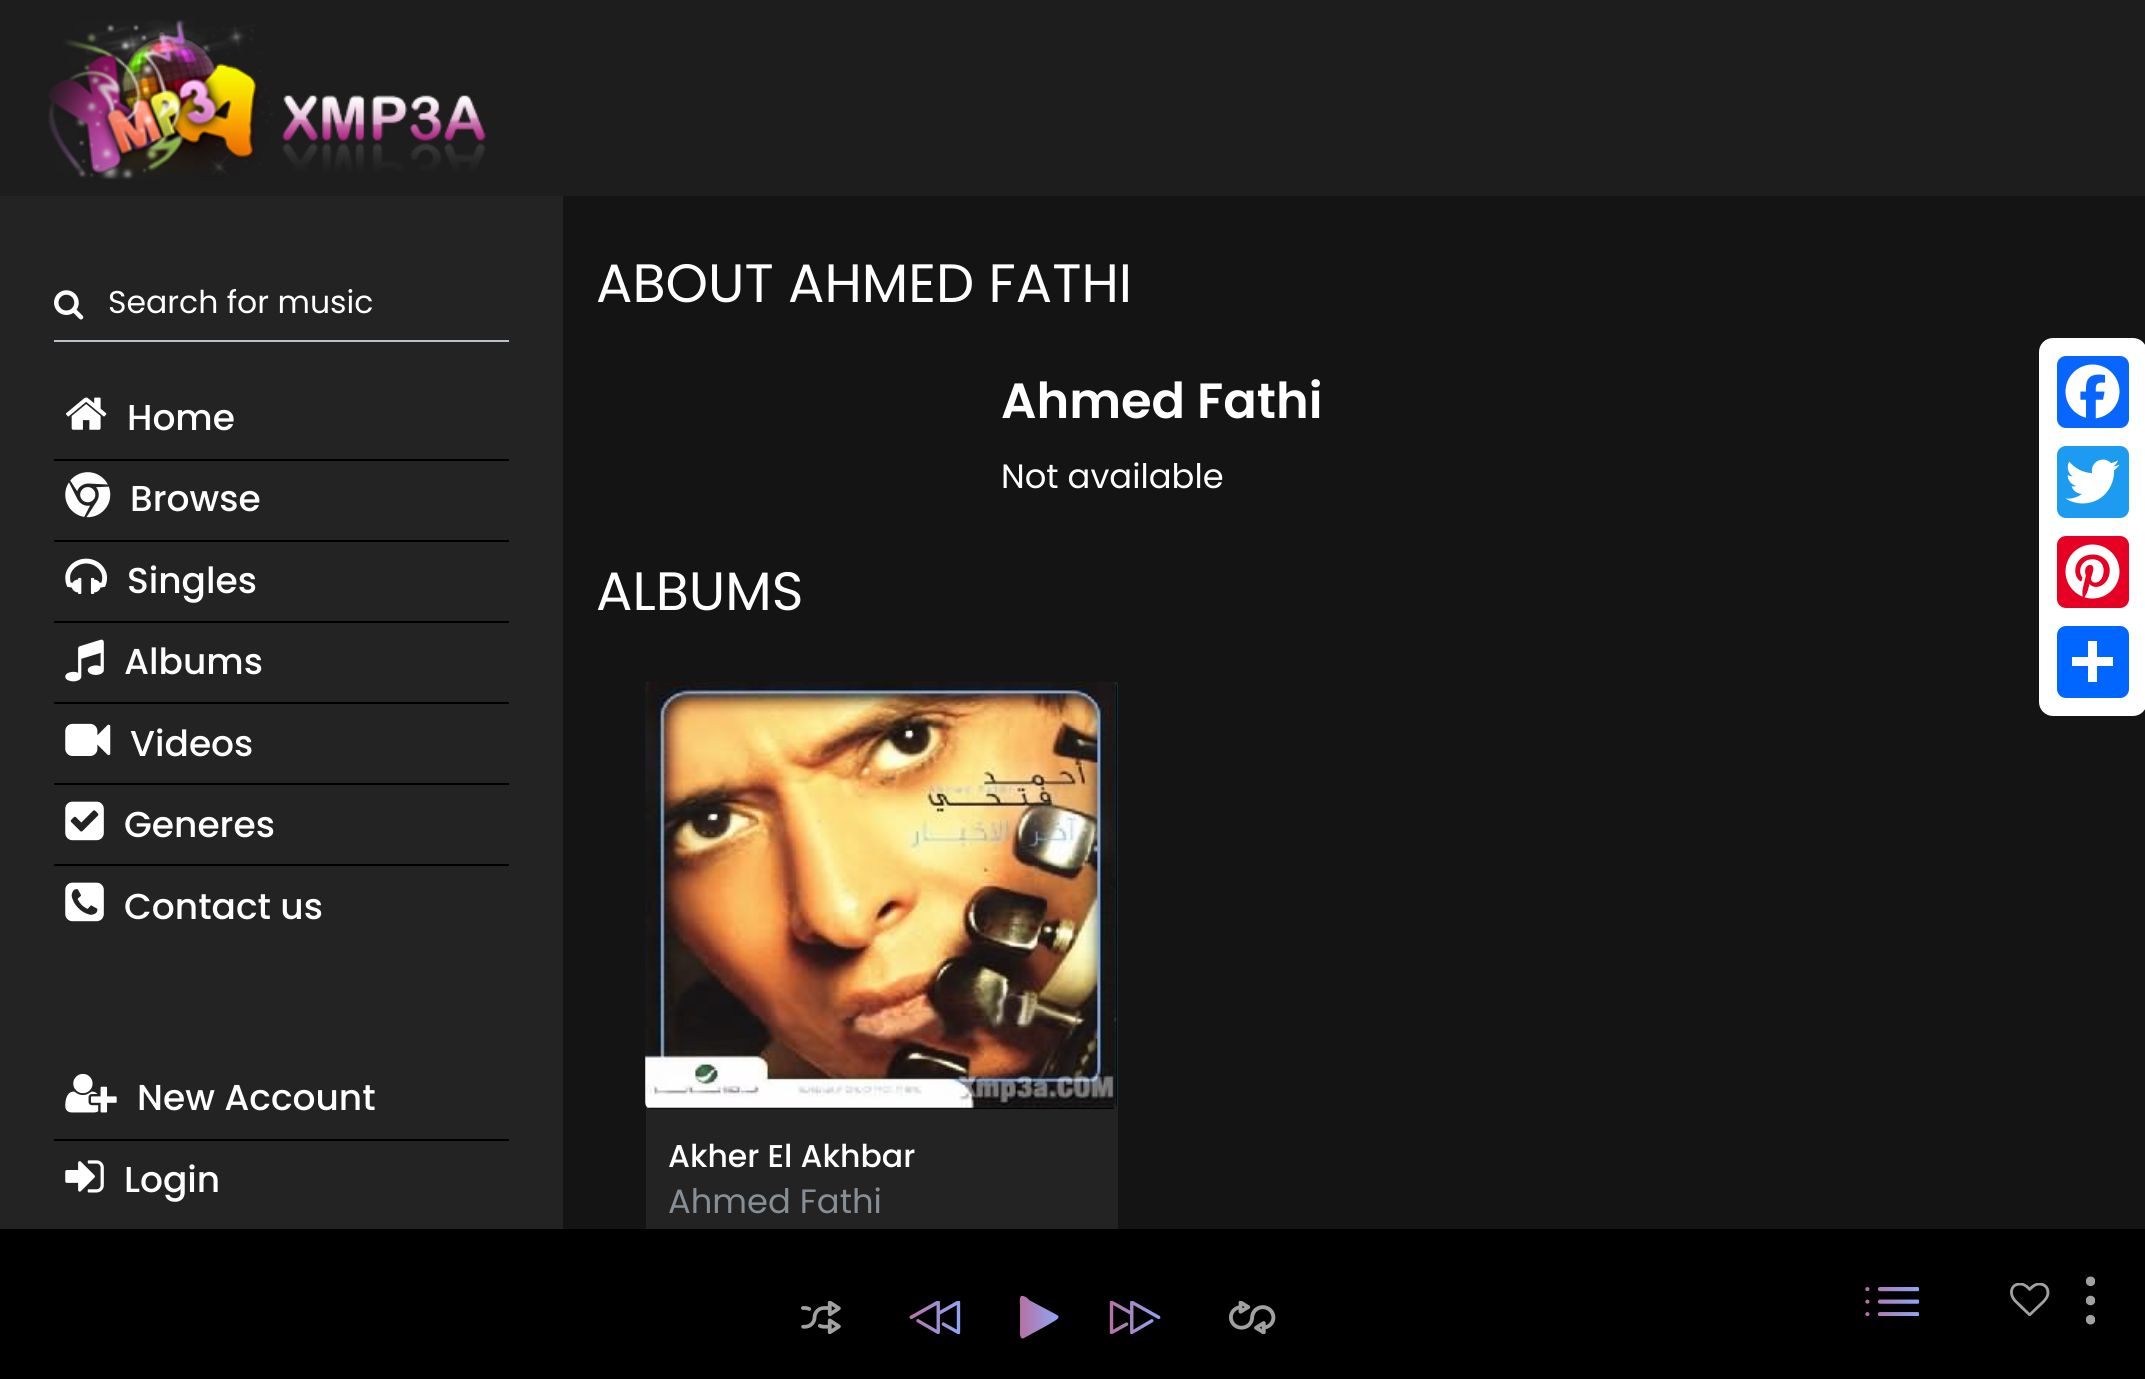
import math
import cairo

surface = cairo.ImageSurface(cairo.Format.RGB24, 2145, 1379)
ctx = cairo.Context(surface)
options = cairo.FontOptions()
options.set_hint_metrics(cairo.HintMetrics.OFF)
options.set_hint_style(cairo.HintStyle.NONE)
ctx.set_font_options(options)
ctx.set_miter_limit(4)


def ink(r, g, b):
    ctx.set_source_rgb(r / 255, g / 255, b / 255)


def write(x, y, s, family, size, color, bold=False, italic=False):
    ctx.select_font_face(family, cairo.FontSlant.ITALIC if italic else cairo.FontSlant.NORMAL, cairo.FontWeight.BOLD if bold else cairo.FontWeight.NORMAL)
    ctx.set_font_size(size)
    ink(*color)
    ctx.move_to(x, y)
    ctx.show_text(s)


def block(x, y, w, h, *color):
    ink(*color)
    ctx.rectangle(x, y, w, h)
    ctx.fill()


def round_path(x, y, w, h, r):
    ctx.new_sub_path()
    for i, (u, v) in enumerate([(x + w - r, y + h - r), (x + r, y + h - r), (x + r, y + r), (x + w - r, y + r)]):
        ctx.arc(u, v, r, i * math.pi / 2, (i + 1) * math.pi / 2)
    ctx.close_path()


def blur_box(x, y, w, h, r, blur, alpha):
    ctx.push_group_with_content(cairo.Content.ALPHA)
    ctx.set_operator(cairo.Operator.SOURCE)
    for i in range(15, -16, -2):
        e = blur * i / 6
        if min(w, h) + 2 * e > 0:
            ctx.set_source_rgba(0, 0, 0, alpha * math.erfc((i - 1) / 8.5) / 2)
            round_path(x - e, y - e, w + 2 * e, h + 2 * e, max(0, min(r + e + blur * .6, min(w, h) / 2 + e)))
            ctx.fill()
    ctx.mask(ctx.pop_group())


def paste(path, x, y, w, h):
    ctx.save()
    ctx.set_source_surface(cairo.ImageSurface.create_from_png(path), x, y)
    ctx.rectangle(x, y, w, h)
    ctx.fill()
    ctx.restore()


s1 = dict(family="Poppins", size=31.5, color=(255, 255, 255))
s2 = dict(family="Poppins Medium", size=36, color=(255, 255, 255))
s3 = dict(family="Poppins", size=54, color=(255, 255, 255))
s4 = dict(family="Poppins SemiBold", size=49.5, color=(255, 255, 255))
s5 = dict(family="Poppins", size=33.75, color=(255, 255, 255))
s6 = dict(family="Poppins Medium", size=31.5, color=(255, 255, 255))
s7 = dict(family="Poppins", size=33.75, color=(134, 142, 150))

ink(29, 29, 29)
ctx.paint()
paste("pic1.png", 48, 19, 438, 161)
block(0, 196, 563, 1033, 35, 35, 35)
paste("pic2.png", 54, 290, 30, 30)
write(108, 313, "Search for music", **s1)
block(54, 340, 455, 2, 185, 193, 202)
block(54, 459, 455, 2, 0, 0, 0)
paste("pic3.png", 65, 397, 42, 33)
write(127, 430, "Home", **s2)
block(54, 540, 455, 2, 0, 0, 0)
paste("pic4.png", 65, 472, 46, 46)
write(130, 511, "Browse", **s2)
block(54, 621, 455, 2, 0, 0, 0)
paste("pic5.png", 65, 558, 42, 36)
write(127, 593, "Singles", **s2)
block(54, 702, 455, 2, 0, 0, 0)
paste("pic6.png", 65, 639, 39, 43)
write(124, 674, "Albums", **s2)
block(54, 783, 455, 2, 0, 0, 0)
paste("pic7.png", 65, 723, 46, 33)
write(130, 756, "Videos", **s2)
block(54, 864, 455, 2, 0, 0, 0)
paste("pic8.png", 65, 801, 39, 40)
write(124, 837, "Generes", **s2)
paste("pic9.png", 65, 882, 39, 40)
write(124, 919, "Contact us", **s2)
block(54, 1139, 455, 2, 0, 0, 0)
paste("pic10.png", 65, 1073, 52, 40)
write(137, 1110, "New Account", **s2)
paste("pic11.png", 65, 1160, 39, 33)
write(124, 1192, "Login", **s2)
block(563, 196, 1582, 1033, 20, 20, 20)
write(596, 302, "ABOUT AHMED FATHI", **s3)
write(1001, 418, "Ahmed Fathi", **s4)
write(1001, 488, "Not available", **s5)
write(596, 610, "ALBUMS", **s3)
block(646, 682, 472, 547, 35, 35, 35)
ctx.save()
round_path(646, 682, 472, 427, 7)
ctx.clip()
ink(0, 140, 186)
blur_box(644, 680, 477, 432, 0, 2, 0.5)
ctx.restore()
paste("pic12.png", 645, 682, 473, 427)
write(668, 1167, "Akher El Akhbar", **s6)
write(668, 1213, "Ahmed Fathi", **s7)
ink(255, 255, 255)
round_path(2039, 338, 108, 378, 14)
ctx.fill()
ink(8, 102, 255)
round_path(2057, 356, 72, 72, 9)
ctx.fill()
paste("pic13.png", 2065, 364, 55, 55)
ink(29, 155, 240)
round_path(2057, 446, 72, 72, 9)
ctx.fill()
paste("pic14.png", 2065, 459, 55, 45)
ink(230, 0, 35)
round_path(2057, 536, 72, 72, 9)
ctx.fill()
paste("pic15.png", 2065, 544, 55, 55)
ink(1, 102, 255)
round_path(2057, 626, 72, 72, 9)
ctx.fill()
block(2088, 641, 9, 41, 255, 255, 255)
block(2072, 657, 41, 9, 255, 255, 255)
block(0, 1229, 2145, 150, 0, 0, 0)
paste("pic16.png", 801, 1301, 40, 33)
paste("pic17.png", 909, 1301, 52, 33)
gradient = cairo.LinearGradient(1020, 1296, 1058, 1296)
gradient.add_color_stop_rgba(0, 0.71, 0.443, 0.631, 1)
gradient.add_color_stop_rgba(1, 0.569, 0.647, 0.957, 1)
ctx.set_source(gradient)
ctx.new_path()
ctx.move_to(1057, 1315)
ctx.line_to(1029, 1300)
ctx.curve_to(1029, 1299, 1024, 1295, 1021, 1296)
ctx.curve_to(1019, 1298, 1020, 1304, 1020, 1305)
ctx.line_to(1020, 1330)
ctx.curve_to(1020, 1330, 1019, 1341, 1024, 1338)
ctx.line_to(1046, 1326)
ctx.curve_to(1054, 1321, 1062, 1318, 1057, 1315)
ctx.close_path()
ctx.fill()
paste("pic18.png", 1109, 1301, 52, 33)
paste("pic19.png", 1229, 1301, 47, 33)
paste("pic20.png", 1865, 1287, 54, 29)
paste("pic21.png", 2010, 1283, 40, 33)
paste("pic22.png", 2086, 1276, 9, 49)
surface.write_to_png("screenshot.png")
